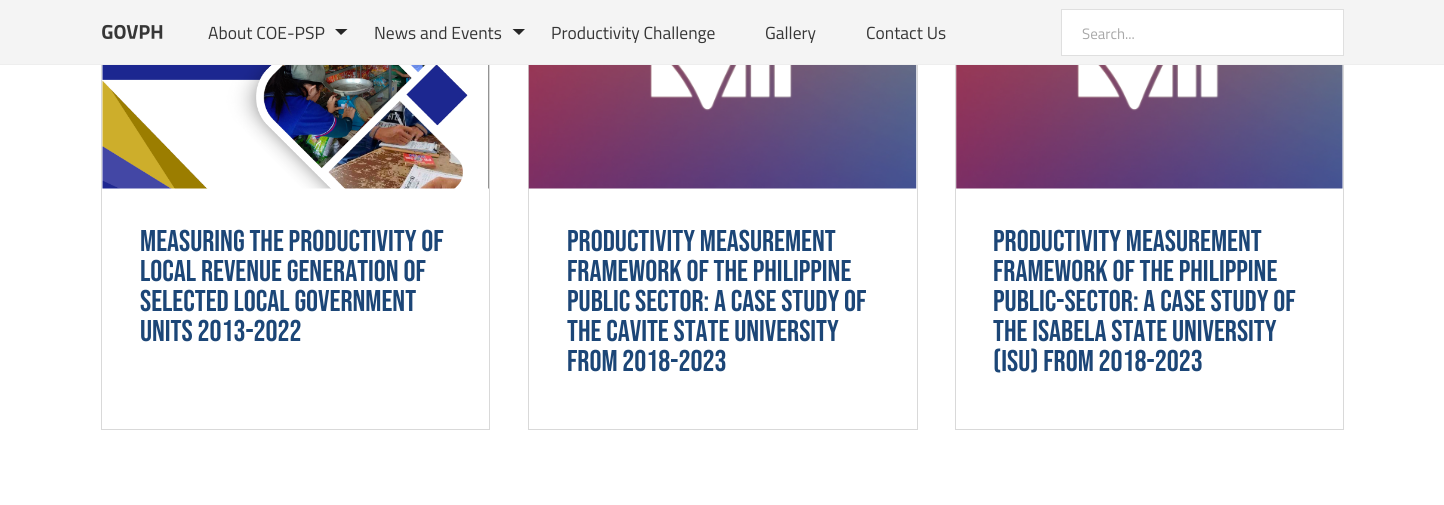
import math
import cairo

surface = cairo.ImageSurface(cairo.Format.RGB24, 1444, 505)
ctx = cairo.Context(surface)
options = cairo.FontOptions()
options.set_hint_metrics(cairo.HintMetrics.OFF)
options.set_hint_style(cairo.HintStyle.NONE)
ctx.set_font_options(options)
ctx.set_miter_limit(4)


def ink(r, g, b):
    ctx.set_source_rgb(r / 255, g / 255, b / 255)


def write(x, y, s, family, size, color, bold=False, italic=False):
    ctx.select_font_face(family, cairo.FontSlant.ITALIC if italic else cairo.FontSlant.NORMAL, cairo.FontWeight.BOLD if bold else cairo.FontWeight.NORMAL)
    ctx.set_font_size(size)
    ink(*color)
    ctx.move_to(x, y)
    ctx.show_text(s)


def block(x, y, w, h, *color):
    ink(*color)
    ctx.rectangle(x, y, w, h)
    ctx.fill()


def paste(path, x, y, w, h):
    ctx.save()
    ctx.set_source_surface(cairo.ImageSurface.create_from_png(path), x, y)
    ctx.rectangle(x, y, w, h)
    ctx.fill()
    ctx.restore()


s1 = dict(family="Titillium Web", size=17.5, color=(54, 54, 54))
s2 = dict(family="Titillium Web", size=15, color=(168, 168, 168))
s3 = dict(family="Bebas Neue", size=30, color=(28, 70, 119))

ink(255, 255, 255)
ctx.paint()
ctx.rectangle(101.5, -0.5, 388, 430)
ink(217, 217, 217)
ctx.set_line_width(1)
ctx.stroke()
ctx.rectangle(528.5, -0.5, 389, 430)
ctx.stroke()
ctx.rectangle(955.5, -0.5, 388, 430)
ctx.stroke()
block(0, 0, 1444, 64, 244, 244, 244)
block(0, 64, 1444, 1, 238, 238, 238)
paste("pic1.png", 102, 24, 61, 15)
write(208, 39, "About COE-PSP", **s1)
ink(38, 38, 38)
ctx.new_path()
ctx.move_to(335, 29)
ctx.line_to(347.5, 29)
ctx.line_to(341, 35)
ctx.close_path()
ctx.fill()
write(374, 39, "News and Events", **s1)
ink(38, 38, 38)
ctx.new_path()
ctx.move_to(512.5, 29)
ctx.line_to(525, 29)
ctx.line_to(519, 35)
ctx.close_path()
ctx.fill()
write(551, 39, "Productivity Challenge", **s1)
write(765, 39, "Gallery", **s1)
write(866, 39, "Contact Us", **s1)
ink(255, 255, 255)
ctx.rectangle(1061.5, 9.5, 282, 46)
ctx.fill_preserve()
ink(223, 223, 223)
ctx.stroke()
write(1082, 39, "Search...", **s2)
paste("pic2.png", 102, 65, 387, 124)
write(140, 251, "MEASURING THE PRODUCTIVITY OF", **s3)
write(140, 281, "LOCAL REVENUE GENERATION OF", **s3)
write(140, 311, "SELECTED LOCAL GOVERNMENT", **s3)
write(140, 341, "UNITS 2013-2022", **s3)
paste("pic3.png", 528, 65, 389, 124)
write(567, 251, "PRODUCTIVITY MEASUREMENT", **s3)
write(567, 281, "FRAMEWORK OF THE PHILIPPINE", **s3)
write(567, 311, "PUBLIC SECTOR: A CASE STUDY OF", **s3)
write(567, 341, "THE CAVITE STATE UNIVERSITY", **s3)
write(567, 371, "FROM 2018-2023", **s3)
paste("pic4.png", 956, 65, 387, 124)
write(993, 251, "PRODUCTIVITY MEASUREMENT", **s3)
write(993, 281, "FRAMEWORK OF THE PHILIPPINE", **s3)
write(993, 311, "PUBLIC-SECTOR: A CASE STUDY OF", **s3)
write(993, 341, "THE ISABELA STATE UNIVERSITY", **s3)
write(993, 371, "(ISU) FROM 2018-2023", **s3)
surface.write_to_png("screenshot.png")
